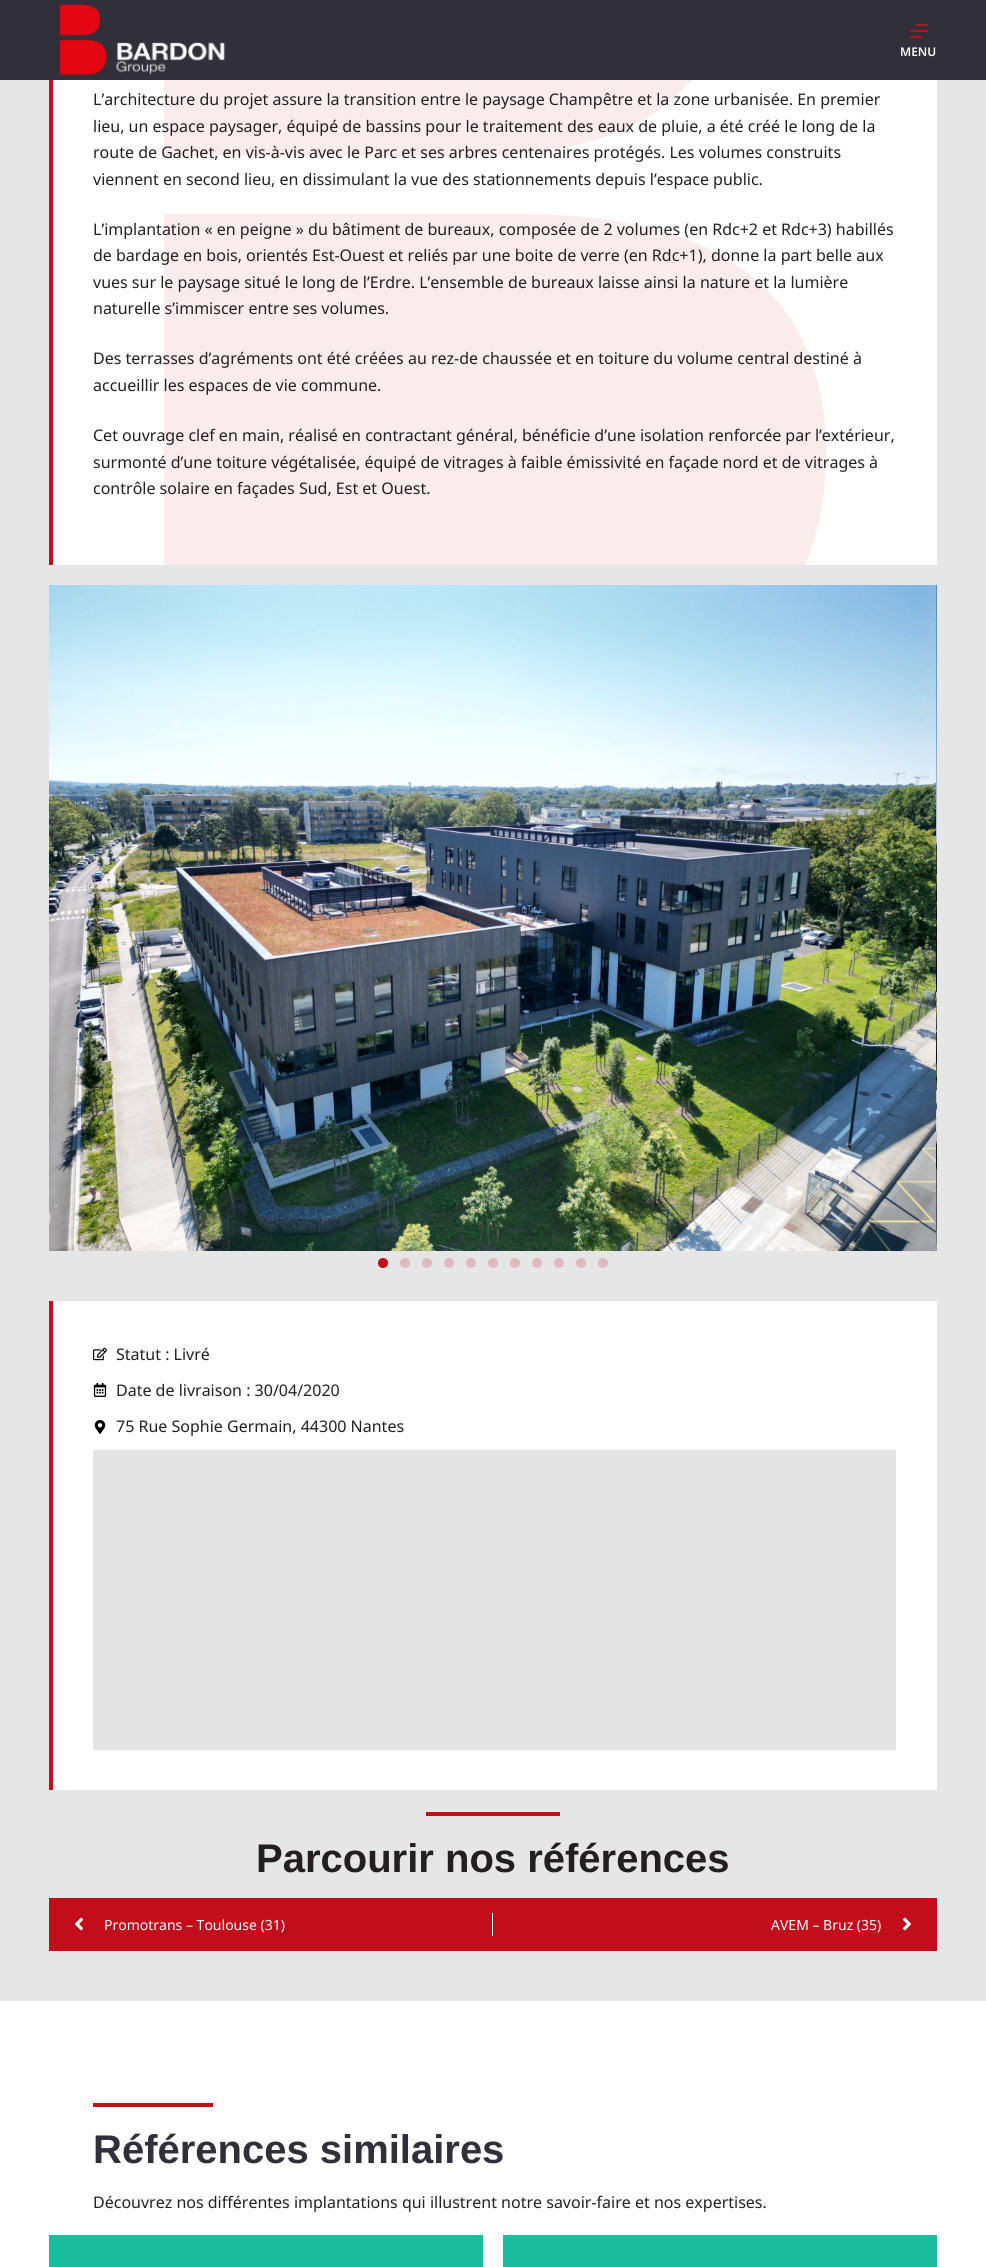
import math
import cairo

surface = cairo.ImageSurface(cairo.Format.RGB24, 986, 2267)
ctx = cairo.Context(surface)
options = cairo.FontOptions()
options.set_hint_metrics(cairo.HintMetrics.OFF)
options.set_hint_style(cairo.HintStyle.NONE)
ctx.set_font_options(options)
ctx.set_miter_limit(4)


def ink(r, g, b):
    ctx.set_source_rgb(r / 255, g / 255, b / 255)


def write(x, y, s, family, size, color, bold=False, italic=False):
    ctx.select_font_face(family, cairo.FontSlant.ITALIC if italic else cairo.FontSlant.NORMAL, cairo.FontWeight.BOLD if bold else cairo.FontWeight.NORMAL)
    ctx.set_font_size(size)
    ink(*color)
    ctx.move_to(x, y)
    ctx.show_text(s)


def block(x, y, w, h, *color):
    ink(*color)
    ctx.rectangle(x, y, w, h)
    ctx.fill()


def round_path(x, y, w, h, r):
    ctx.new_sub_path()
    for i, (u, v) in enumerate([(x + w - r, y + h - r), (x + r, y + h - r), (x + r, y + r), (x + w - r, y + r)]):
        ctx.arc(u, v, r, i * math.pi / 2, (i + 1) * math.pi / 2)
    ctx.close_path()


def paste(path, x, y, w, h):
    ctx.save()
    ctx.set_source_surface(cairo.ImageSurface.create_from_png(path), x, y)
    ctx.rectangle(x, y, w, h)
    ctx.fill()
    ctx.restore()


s1 = dict(family="Noto Sans SemiBold", size=12, color=(255, 255, 255))
s2 = dict(family="Noto Sans", size=16, color=(35, 31, 32))
s3 = dict(family="Liberation Sans", size=40, color=(35, 31, 32), bold=True)
s4 = dict(family="Noto Sans", size=14, color=(255, 255, 255))
s5 = dict(family="Liberation Sans", size=40, color=(49, 47, 57), bold=True)

ink(255, 255, 255)
ctx.paint()
block(0, 80, 986, 1921, 231, 230, 230)
block(53, 80, 884, 485, 255, 255, 255)
ctx.save()
ctx.rectangle(164, 0, 662, 565)
ctx.clip()
ink(250, 236, 237)
ctx.new_path()
ctx.move_to(548, 710)
ctx.curve_to(657, 710, 735, 676, 782, 608)
ctx.curve_to(811, 566, 826, 514, 826, 453)
ctx.curve_to(826, 351, 783, 281, 698, 244)
ctx.curve_to(652, 224, 592, 214, 518, 214)
ctx.line_to(164, 214)
ctx.line_to(164, 710)
ctx.close_path()
ctx.move_to(463, 156)
ctx.curve_to(538, 156, 597, 145, 638, 123)
ctx.curve_to(704, 88, 737, 24, 737, -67)
ctx.curve_to(737, -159, 702, -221, 632, -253)
ctx.curve_to(593, -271, 534, -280, 456, -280)
ctx.line_to(164, -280)
ctx.line_to(164, 156)
ctx.close_path()
ctx.fill()
ctx.restore()
block(0, 0, 986, 80, 49, 47, 57)
paste("pic1.png", 59, 4, 167, 72)
ink(194, 14, 27)
round_path(916, 24, 12, 2, 1)
ctx.fill()
round_path(910, 30, 18, 2, 1)
ctx.fill()
round_path(910, 36, 12, 2, 1)
ctx.fill()
write(900, 56, "MENU", **s1)
block(49, 80, 4, 485, 194, 14, 27)
write(93, 105, "L’architecture du projet assure la transition entre le paysage Champêtre et la zone urbanisée. En premier", **s2)
write(93, 132, "lieu, un espace paysager, équipé de bassins pour le traitement des eaux de pluie, a été créé le long de la", **s2)
write(93, 158, "route de Gachet, en vis-à-vis avec le Parc et ses arbres centenaires protégés. Les volumes construits", **s2)
write(93, 185, "viennent en second lieu, en dissimulant la vue des stationnements depuis l’espace public.", **s2)
write(93, 235, "L’implantation « en peigne » du bâtiment de bureaux, composée de 2 volumes (en Rdc+2 et Rdc+3) habillés", **s2)
write(93, 261, "de bardage en bois, orientés Est-Ouest et reliés par une boite de verre (en Rdc+1), donne la part belle aux", **s2)
write(93, 288, "vues sur le paysage situé le long de l’Erdre. L’ensemble de bureaux laisse ainsi la nature et la lumière", **s2)
write(93, 314, "naturelle s’immiscer entre ses volumes.", **s2)
write(93, 364, "Des terrasses d’agréments ont été créées au rez-de chaussée et en toiture du volume central destiné à", **s2)
write(93, 391, "accueillir les espaces de vie commune.", **s2)
write(93, 441, "Cet ouvrage clef en main, réalisé en contractant général, bénéficie d’une isolation renforcée par l’extérieur,", **s2)
write(93, 468, "surmonté d’une toiture végétalisée, équipé de vitrages à faible émissivité en façade nord et de vitrages à", **s2)
write(93, 494, "contrôle solaire en façades Sud, Est et Ouest.", **s2)
paste("pic2.png", 49, 585, 887, 666)
paste("pic3.png", 936, 585, 1, 666)
ink(194, 14, 27)
ctx.arc(383, 1263, 5, 0, 2 * math.pi)
ctx.fill()
ink(224, 187, 189)
ctx.arc(405, 1263, 5, 0, 2 * math.pi)
ctx.fill()
ctx.arc(427, 1263, 5, 0, 2 * math.pi)
ctx.fill()
ctx.arc(449, 1263, 5, 0, 2 * math.pi)
ctx.fill()
ctx.arc(471, 1263, 5, 0, 2 * math.pi)
ctx.fill()
ctx.arc(493, 1263, 5, 0, 2 * math.pi)
ctx.fill()
ctx.arc(515, 1263, 5, 0, 2 * math.pi)
ctx.fill()
ctx.arc(537, 1263, 5, 0, 2 * math.pi)
ctx.fill()
ctx.arc(559, 1263, 5, 0, 2 * math.pi)
ctx.fill()
ctx.arc(581, 1263, 5, 0, 2 * math.pi)
ctx.fill()
ctx.arc(603, 1263, 5, 0, 2 * math.pi)
ctx.fill()
block(53, 1301, 884, 489, 255, 255, 255)
block(49, 1301, 4, 489, 194, 14, 27)
paste("pic4.png", 93, 1347, 14, 14)
write(116, 1360, "Statut : Livré", **s2)
paste("pic5.png", 93, 1383, 14, 14)
write(116, 1396, "Date de livraison : 30/04/2020", **s2)
paste("pic6.png", 94, 1420, 12, 14)
write(116, 1432, "75 Rue Sophie Germain, 44300 Nantes", **s2)
block(93, 1450, 803, 300, 227, 227, 227)
block(426, 1812, 134, 4, 194, 14, 27)
write(256, 1872, "Parcourir nos références", **s3)
block(49, 1898, 888, 53, 194, 14, 27)
paste("pic7.png", 75, 1917, 8, 14)
write(104, 1930, "Promotrans – Toulouse (31)", **s4)
block(492, 1913, 1, 23, 255, 255, 255)
write(771, 1930, "AVEM – Bruz (35)", **s4)
paste("pic8.png", 903, 1917, 8, 14)
block(93, 2103, 120, 4, 194, 14, 27)
write(93, 2163, "Références similaires", **s5)
write(93, 2208, "Découvrez nos différentes implantations qui illustrent notre savoir-faire et nos expertises.", **s2)
block(49, 2235, 434, 32, 26, 188, 156)
block(503, 2235, 434, 32, 26, 188, 156)
surface.write_to_png("screenshot.png")
